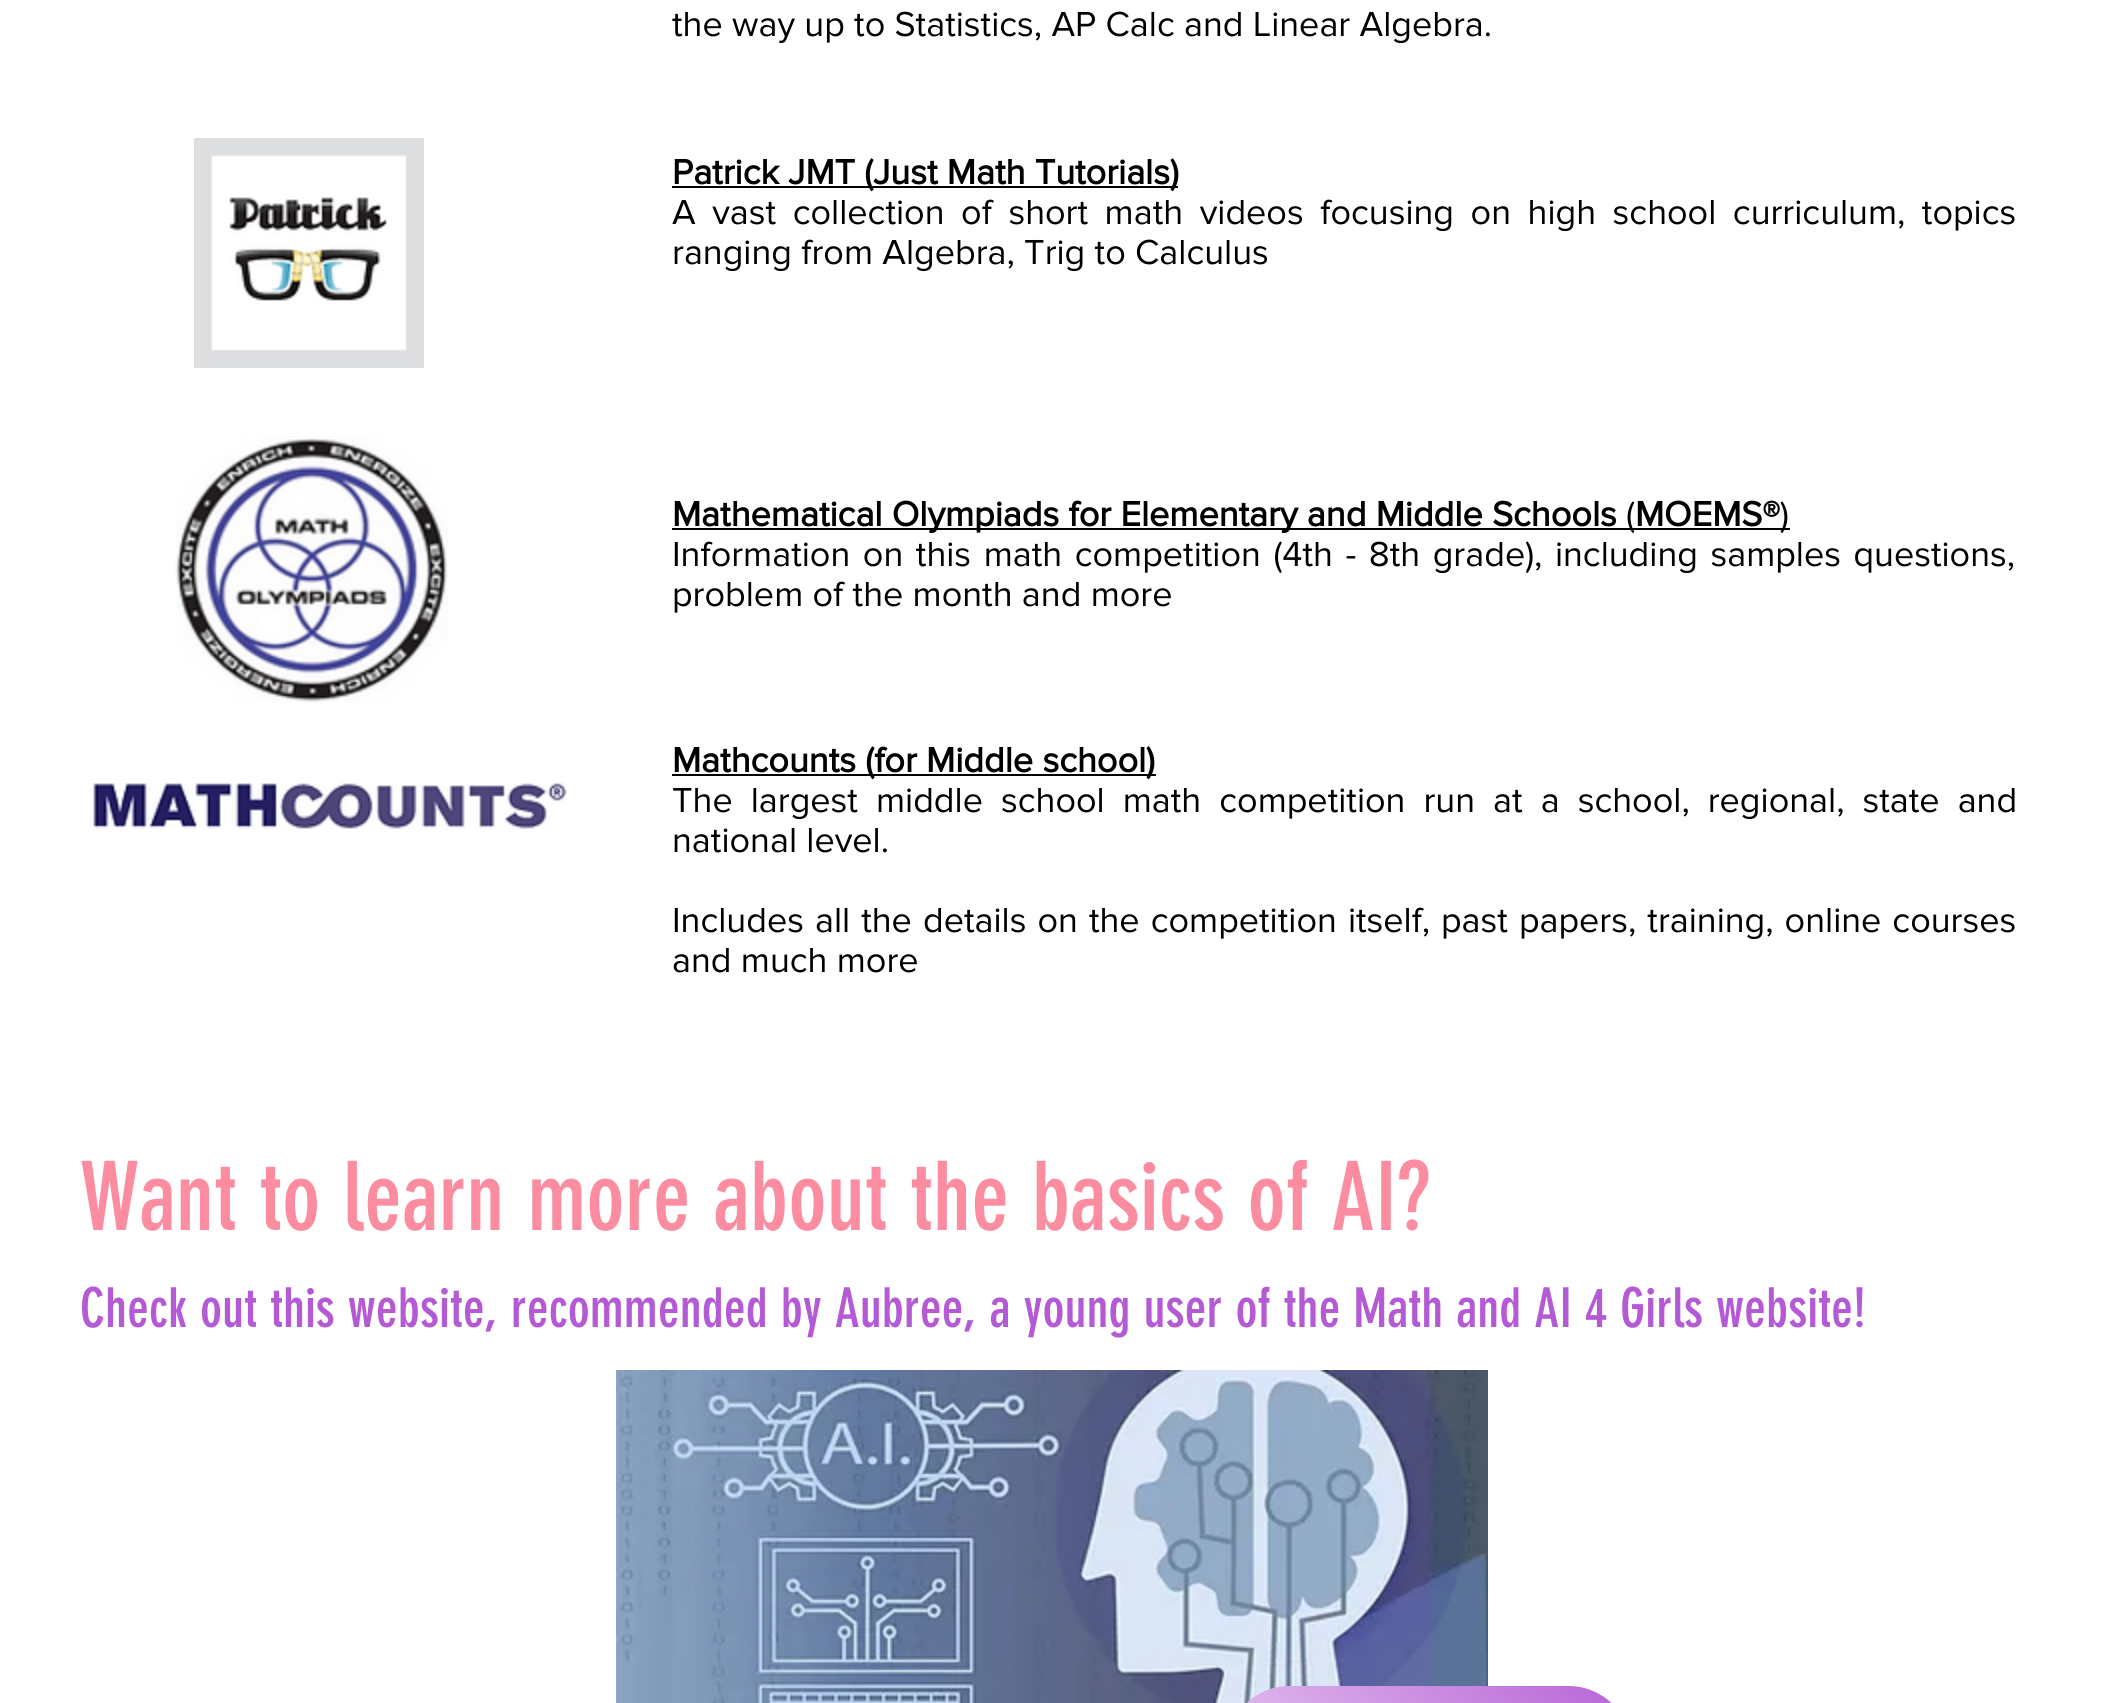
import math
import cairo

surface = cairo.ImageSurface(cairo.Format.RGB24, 2103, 1703)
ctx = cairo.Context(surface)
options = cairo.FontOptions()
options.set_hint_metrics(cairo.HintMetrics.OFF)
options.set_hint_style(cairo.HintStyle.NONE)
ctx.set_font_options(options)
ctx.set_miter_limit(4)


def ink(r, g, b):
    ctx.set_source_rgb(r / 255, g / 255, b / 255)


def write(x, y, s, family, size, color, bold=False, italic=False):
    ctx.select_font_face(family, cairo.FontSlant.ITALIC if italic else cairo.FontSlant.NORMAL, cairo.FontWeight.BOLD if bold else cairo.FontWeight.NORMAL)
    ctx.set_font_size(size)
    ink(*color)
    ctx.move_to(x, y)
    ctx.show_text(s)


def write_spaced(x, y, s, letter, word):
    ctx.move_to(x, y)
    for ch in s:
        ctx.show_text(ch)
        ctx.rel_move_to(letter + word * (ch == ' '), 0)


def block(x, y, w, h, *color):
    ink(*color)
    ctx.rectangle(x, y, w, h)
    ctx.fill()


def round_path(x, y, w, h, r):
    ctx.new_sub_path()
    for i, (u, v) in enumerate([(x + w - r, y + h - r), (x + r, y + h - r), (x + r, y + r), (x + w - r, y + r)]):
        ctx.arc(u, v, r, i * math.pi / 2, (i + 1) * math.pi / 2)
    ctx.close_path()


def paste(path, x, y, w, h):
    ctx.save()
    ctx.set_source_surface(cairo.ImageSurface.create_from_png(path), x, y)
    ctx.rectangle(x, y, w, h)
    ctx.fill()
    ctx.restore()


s1 = dict(family="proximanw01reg", size=36, color=(0, 0, 0))
s2 = dict(family="proximanw01reg", size=36, color=(0, 0, 0), bold=True)
s3 = dict(family="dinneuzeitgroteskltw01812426", size=94, color=(252, 140, 160))
s4 = dict(family="dinneuzeitgroteskltw01812426", size=54, color=(180, 90, 212))

ink(255, 255, 255)
ctx.paint()
write(672, 36, "the way up to Statistics, AP Calc and Linear Algebra.", **s1)
paste("pic1.png", 194, 138, 230, 230)
block(672, 186, 506, 2, 0, 0, 0)
write(672, 184, "Patrick JMT (Just Math Tutorials)", **s2)
ctx.select_font_face("proximanw01reg")
write_spaced(672, 224, "A vast collection of short math videos focusing on high school curriculum, topics", 0, 7.25)
write(672, 264, "ranging from Algebra, Trig to Calculus", **s1)
paste("pic2.png", 175, 436, 273, 267)
block(672, 528, 962, 2, 0, 0, 0)
write(672, 526, "Mathematical Olympiads for Elementary and Middle Schools", **s2)
write(1626, 526, "(", **s1)
block(1634, 528, 156, 2, 0, 0, 0)
write(1635, 526, "MOEMS®", **s2)
write(1780, 526, ")", **s1)
write_spaced(672, 566, "Information on this math competition (4th - 8th grade), including samples questions,", 0, 3.25)
write(672, 606, "problem of the month and more", **s1)
paste("pic3.png", 90, 783, 477, 46)
block(672, 774, 484, 2, 0, 0, 0)
write(672, 772, "Mathcounts (for Middle school)", **s2)
ctx.select_font_face("proximanw01reg")
write_spaced(672, 812, "The largest middle school math competition run at a school, regional, state and", 0, 8.75)
write(672, 852, "national level.", **s1)
write_spaced(672, 932, "Includes all the details on the competition itself,", 0, 1.75)
write_spaced(1441, 932, "past papers, training, online courses", 0, 1.75)
write(672, 972, "and much more", **s1)
write(80, 1230, "Want to learn more about the basics of AI?", **s3)
write(80, 1327, "Check out this website, recommended by Aubree, a young user of the Math and AI 4 Girls website!", **s4)
paste("pic4.png", 616, 1370, 872, 333)
ink(231, 202, 242)
round_path(1226, 1686, 406, 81, 64)
ctx.fill()
gradient = cairo.LinearGradient(1576, 1622, 1282, 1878)
gradient.add_color_stop_rgba(0, 1, 0.31, 0.31, 1)
gradient.add_color_stop_rgba(0.01, 0.706, 0.353, 0.831, 0.91)
gradient.add_color_stop_rgba(1, 0.706, 0.353, 0.831, 0)
ctx.set_source(gradient)
round_path(1226, 1686, 406, 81, 64)
ctx.fill()
surface.write_to_png("screenshot.png")
